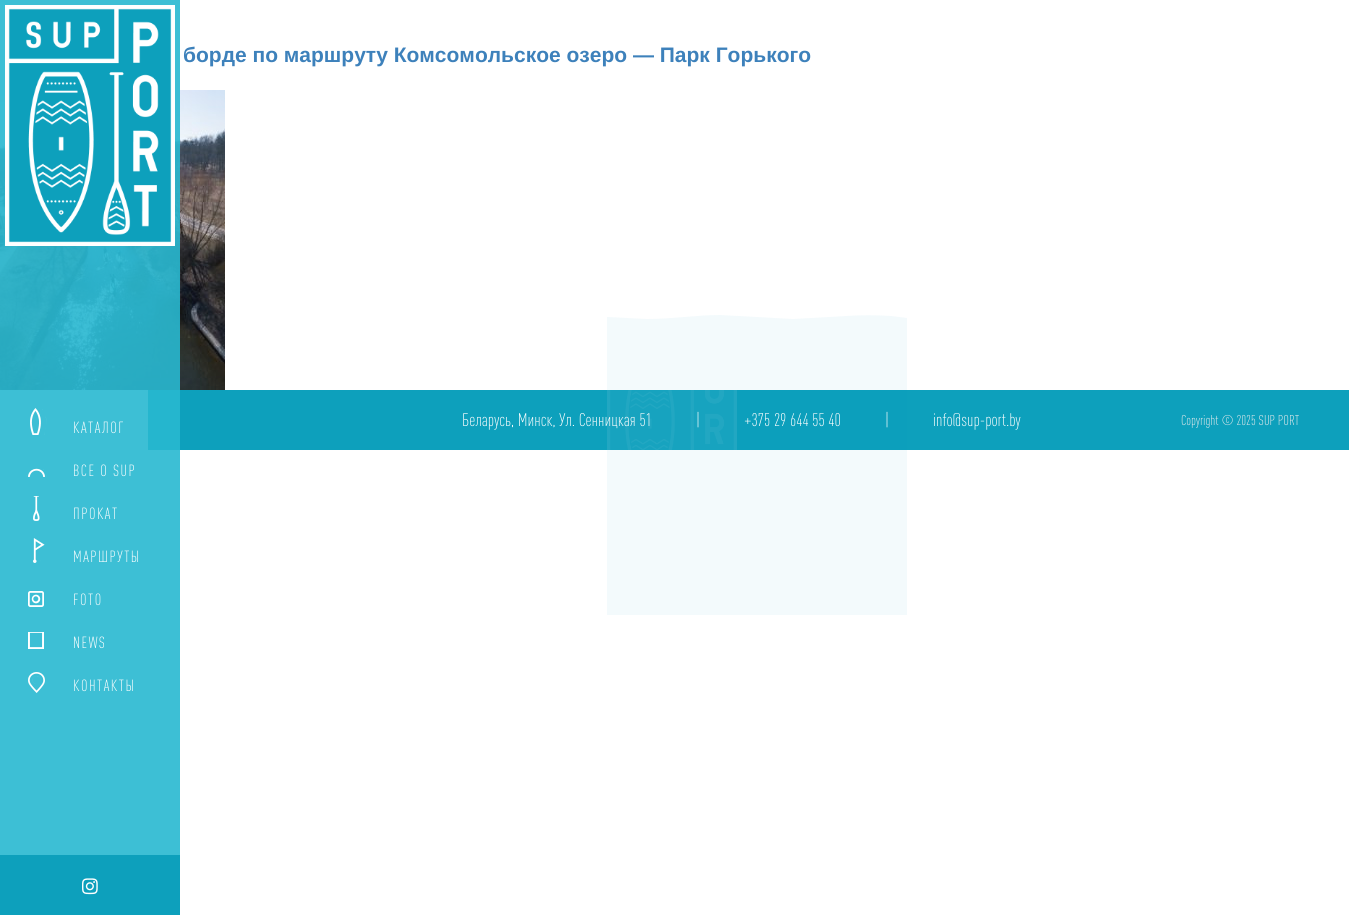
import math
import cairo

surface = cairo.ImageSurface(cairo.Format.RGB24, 1349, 915)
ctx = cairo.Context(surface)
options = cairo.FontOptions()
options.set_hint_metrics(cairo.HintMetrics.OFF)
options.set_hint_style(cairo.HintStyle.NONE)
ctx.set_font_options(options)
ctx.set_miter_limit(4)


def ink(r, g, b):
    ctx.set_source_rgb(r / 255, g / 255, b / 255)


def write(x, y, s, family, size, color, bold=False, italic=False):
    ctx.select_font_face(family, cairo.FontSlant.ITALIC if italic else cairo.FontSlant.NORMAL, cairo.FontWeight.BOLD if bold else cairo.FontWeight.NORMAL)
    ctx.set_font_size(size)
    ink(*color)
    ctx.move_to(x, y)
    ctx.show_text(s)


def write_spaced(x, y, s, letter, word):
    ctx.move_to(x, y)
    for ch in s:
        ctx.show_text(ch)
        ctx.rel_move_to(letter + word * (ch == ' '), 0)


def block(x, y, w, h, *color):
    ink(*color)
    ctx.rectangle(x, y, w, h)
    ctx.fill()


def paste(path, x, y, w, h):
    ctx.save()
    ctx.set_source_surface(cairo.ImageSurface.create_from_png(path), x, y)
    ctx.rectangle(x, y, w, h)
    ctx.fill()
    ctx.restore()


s1 = dict(family="Liberation Sans", size=21, color=(61, 129, 187), bold=True)
s2 = dict(family="DIN Light", size=18, color=(255, 255, 255))
s3 = dict(family="DIN Light", size=14, color=(237, 237, 237))

ink(255, 255, 255)
ctx.paint()
write(183, 62, "борде по маршруту Комсомольское озеро — Парк Горького", **s1)
paste("pic1.png", 0, 90, 225, 300)
block(148, 390, 1201, 60, 13, 160, 188)
ctx.set_source_rgba(1, 1, 1, 0.05)
ctx.rectangle(607, 390, 130, 60)
ctx.fill()
ctx.set_source_rgba(0, 0.608, 0.722, 0.05)
ctx.new_path()
ctx.move_to(907, 615)
ctx.line_to(907, 318)
ctx.line_to(891, 316)
ctx.curve_to(876, 315, 861, 315, 846, 316)
ctx.line_to(793, 319)
ctx.line_to(720, 315)
ctx.curve_to(696, 315, 672, 319, 647, 319)
ctx.line_to(607, 317)
ctx.line_to(607, 615)
ctx.close_path()
ctx.fill()
write(462, 426, "Беларусь, Минск, Ул. Сенницкая 51", **s2)
write(696, 426, "|", **s2)
paste("pic2.png", 607, 390, 130, 60)
ctx.set_source_rgba(0.157, 0.722, 0.816, 0.9)
ctx.rectangle(0, 0, 180, 855)
ctx.fill()
block(8, 8, 164, 235, 13, 160, 188)
paste("pic3.png", 5, 5, 170, 241)
paste("pic4.png", 30, 408, 17, 27)
ctx.set_font_size(16)
ink(255, 255, 255)
write_spaced(73, 433, "КАТАЛОГ", 1.5, 0)
paste("pic5.png", 26, 468, 21, 9)
write_spaced(73, 476, "ВСЕ О SUP", 1.5, 0)
paste("pic6.png", 33, 496, 7, 25)
write_spaced(73, 519, "ПРОКАТ", 1.5, 0)
paste("pic7.png", 33, 538, 12, 25)
write_spaced(73, 562, "МАРШРУТЫ", 1.5, 0)
paste("pic8.png", 28, 591, 16, 16)
write_spaced(73, 605, "FOTO", 1.5, 0)
paste("pic9.png", 28, 632, 16, 17)
write_spaced(73, 648, "NEWS", 1.5, 0)
paste("pic10.png", 28, 672, 17, 21)
write_spaced(73, 691, "КОНТАКТЫ", 1.5, 0)
block(0, 855, 180, 60, 13, 160, 188)
paste("pic11.png", 82, 878, 16, 17)
write(744, 426, "+375 29 644 55 40", **s2)
write(885, 426, "|", **s2)
write(933, 426, "info@sup-port.by", **s2)
write(1181, 425, "Copyright © 2025 SUP PORT", **s3)
surface.write_to_png("screenshot.png")
